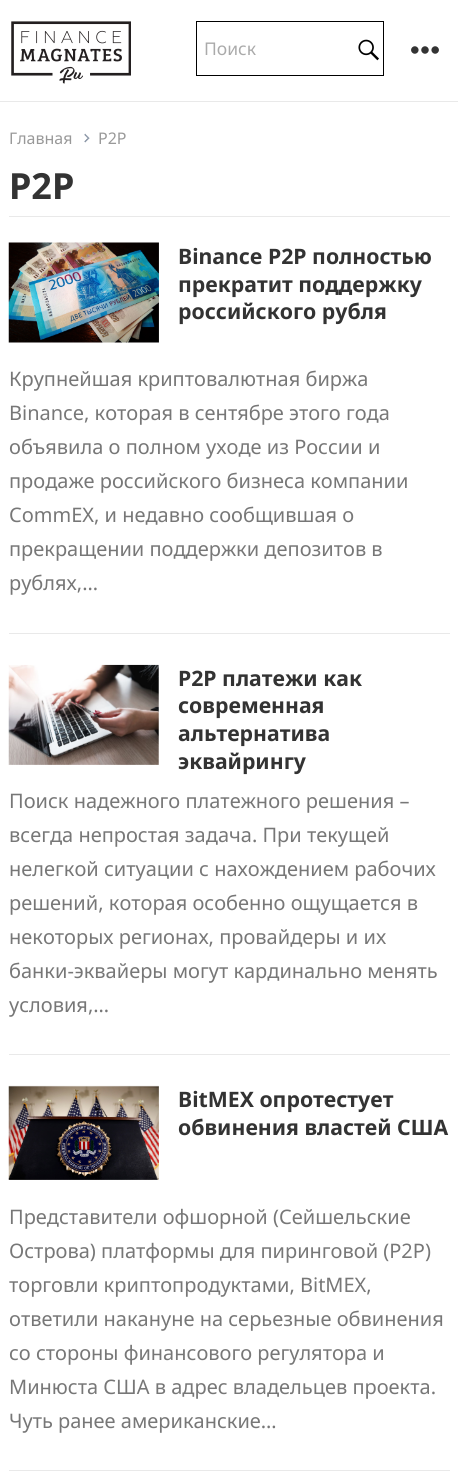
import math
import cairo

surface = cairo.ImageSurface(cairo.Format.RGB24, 458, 1474)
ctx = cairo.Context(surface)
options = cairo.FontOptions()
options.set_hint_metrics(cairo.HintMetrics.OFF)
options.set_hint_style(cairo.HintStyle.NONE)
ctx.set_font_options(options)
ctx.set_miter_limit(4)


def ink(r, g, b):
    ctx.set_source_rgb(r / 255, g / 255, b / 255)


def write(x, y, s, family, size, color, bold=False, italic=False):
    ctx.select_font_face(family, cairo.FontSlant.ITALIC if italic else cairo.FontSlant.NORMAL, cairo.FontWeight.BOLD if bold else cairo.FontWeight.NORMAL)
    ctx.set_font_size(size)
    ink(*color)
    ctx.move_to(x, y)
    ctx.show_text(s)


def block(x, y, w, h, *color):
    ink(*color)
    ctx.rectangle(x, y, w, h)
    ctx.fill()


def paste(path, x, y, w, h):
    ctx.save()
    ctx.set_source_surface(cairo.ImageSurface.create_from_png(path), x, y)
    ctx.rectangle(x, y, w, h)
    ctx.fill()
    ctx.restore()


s1 = dict(family="Noto Sans", size=17.5, color=(170, 170, 170))
s2 = dict(family="Noto Sans", size=16, color=(153, 153, 153))
s3 = dict(family="Noto Sans", size=36, color=(51, 51, 51), bold=True)
s4 = dict(family="Noto Sans", size=21.25, color=(51, 51, 51), bold=True)
s5 = dict(family="Noto Sans", size=20, color=(119, 119, 119))

ink(255, 255, 255)
ctx.paint()
block(0, 101, 458, 1, 233, 233, 233)
paste("pic1.png", 11, 21, 120, 63)
paste("pic2.png", 411, 46, 28, 8)
ctx.rectangle(196.5, 21.5, 187, 54)
ink(0, 0, 0)
ctx.set_line_width(1)
ctx.stroke()
write(204, 55, "Поиск", **s1)
paste("pic3.png", 358, 39, 21, 22)
block(9, 216, 441, 1, 233, 233, 233)
write(9, 144, "Главная", **s2)
paste("pic4.png", 84, 133, 6, 10)
write(98, 144, "P2P", **s2)
write(9, 199, "P2P", **s3)
block(9, 633, 441, 1, 233, 233, 233)
paste("pic5.png", 8, 242, 151, 101)
write(178, 264, "Binance P2P полностью", **s4)
write(178, 292, "прекратит поддержку", **s4)
write(178, 319, "российского рубля", **s4)
write(9, 386, "Крупнейшая криптовалютная биржа", **s5)
write(9, 420, "Binance, которая в сентябре этого года", **s5)
write(9, 454, "объявила о полном уходе из России и", **s5)
write(9, 488, "продаже российского бизнеса компании", **s5)
write(9, 522, "CommEX, и недавно сообщившая о", **s5)
write(9, 556, "прекращении поддержки депозитов в", **s5)
write(9, 590, "рублях,…", **s5)
block(9, 1054, 441, 1, 233, 233, 233)
paste("pic6.png", 8, 664, 151, 101)
write(178, 686, "P2P платежи как", **s4)
write(178, 713, "современная", **s4)
write(178, 741, "альтернатива", **s4)
write(178, 769, "эквайрингу", **s4)
write(9, 808, "Поиск надежного платежного решения –", **s5)
write(9, 842, "всегда непростая задача. При текущей", **s5)
write(9, 876, "нелегкой ситуации с нахождением рабочих", **s5)
write(9, 910, "решений, которая особенно ощущается в", **s5)
write(9, 944, "некоторых регионах, провайдеры и их", **s5)
write(9, 978, "банки-эквайеры могут кардинально менять", **s5)
write(9, 1012, "условия,…", **s5)
block(9, 1470, 441, 1, 233, 233, 233)
paste("pic7.png", 8, 1085, 151, 95)
write(178, 1107, "BitMEX опротестует", **s4)
write(178, 1135, "обвинения властей США", **s4)
write(9, 1224, "Представители офшорной (Сейшельские", **s5)
write(9, 1258, "Острова) платформы для пиринговой (P2P)", **s5)
write(9, 1292, "торговли криптопродуктами, BitMEX,", **s5)
write(9, 1326, "ответили накануне на серьезные обвинения", **s5)
write(9, 1360, "со стороны финансового регулятора и", **s5)
write(9, 1394, "Минюста США в адрес владельцев проекта.", **s5)
write(9, 1428, "Чуть ранее американские…", **s5)
surface.write_to_png("screenshot.png")
